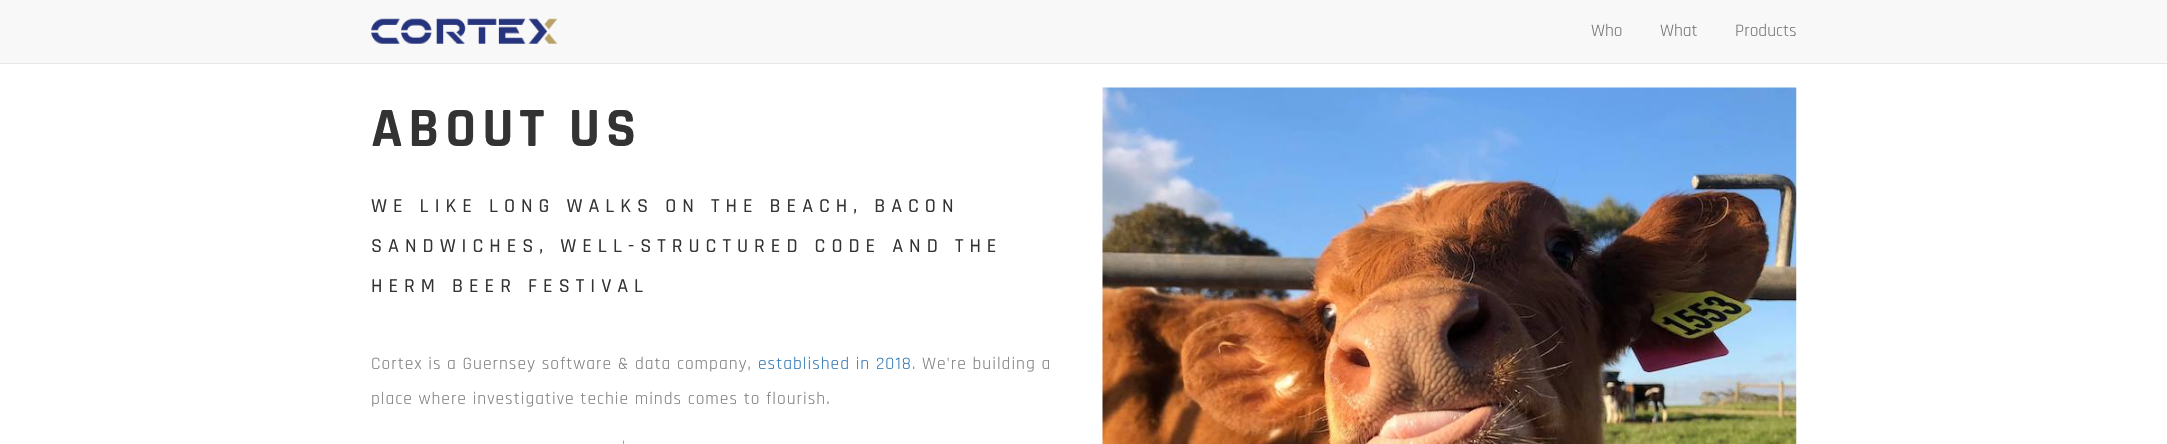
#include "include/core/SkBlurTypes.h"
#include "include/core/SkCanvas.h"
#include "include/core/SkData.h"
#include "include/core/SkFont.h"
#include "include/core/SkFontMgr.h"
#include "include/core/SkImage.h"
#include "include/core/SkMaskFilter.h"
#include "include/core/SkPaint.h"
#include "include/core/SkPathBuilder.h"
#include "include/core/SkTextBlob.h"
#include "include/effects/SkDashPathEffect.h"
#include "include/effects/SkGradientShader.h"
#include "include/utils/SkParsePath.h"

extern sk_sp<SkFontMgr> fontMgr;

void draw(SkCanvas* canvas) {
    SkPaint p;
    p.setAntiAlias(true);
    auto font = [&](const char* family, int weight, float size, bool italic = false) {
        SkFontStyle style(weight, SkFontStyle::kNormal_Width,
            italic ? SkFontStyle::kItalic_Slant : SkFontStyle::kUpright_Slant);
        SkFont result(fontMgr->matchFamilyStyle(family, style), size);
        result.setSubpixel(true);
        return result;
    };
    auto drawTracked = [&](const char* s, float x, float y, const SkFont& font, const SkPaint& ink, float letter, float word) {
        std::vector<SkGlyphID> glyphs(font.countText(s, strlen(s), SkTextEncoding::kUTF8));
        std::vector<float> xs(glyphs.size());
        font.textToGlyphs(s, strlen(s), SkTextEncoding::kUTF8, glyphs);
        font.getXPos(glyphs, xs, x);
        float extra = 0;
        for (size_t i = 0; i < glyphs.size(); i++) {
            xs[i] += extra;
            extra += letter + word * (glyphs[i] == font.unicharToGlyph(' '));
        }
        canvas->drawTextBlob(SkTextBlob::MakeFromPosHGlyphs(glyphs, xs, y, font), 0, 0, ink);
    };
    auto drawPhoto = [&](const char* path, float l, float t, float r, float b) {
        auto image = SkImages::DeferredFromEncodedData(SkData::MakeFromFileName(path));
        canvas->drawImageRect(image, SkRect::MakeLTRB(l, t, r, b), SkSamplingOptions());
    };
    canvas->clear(0xFFFFFFFF);
    p.setColor(0xFFF8F8F8);
    canvas->drawRect(SkRect::MakeLTRB(0, 0, 2167, 63), p);
    p.setColor(0xFFE7E7E7);
    canvas->drawRect(SkRect::MakeLTRB(0, 63, 2167, 64), p);
    drawPhoto("media/1.png", 371, 18, 558, 44);
    auto font1 = font("Rajdhani", 400, 17.5f);
    p.setColor(0xFF777777);
    {
        const struct { const char* s; float x, y; } items[] = {
            {"Who", 1591, 36},
            {"What", 1660, 36},
            {"Products", 1735, 36},
        };
        for (auto [s, x, y] : items) {
            canvas->drawString(s, x, y, font1, p);
        }
    }
    auto font2 = font("Rajdhani", 700, 56);
    p.setColor(0xFF333333);
    drawTracked("ABOUT US", 371, 146, font2, p, 6, 0);
    auto font3 = font("Rajdhani", 500, 20);
    {
        const struct { const char* s; float x, y; } items[] = {
            {"WE LIKE LONG WALKS ON THE BEACH, BACON", 371, 212},
            {"SANDWICHES, WELL-STRUCTURED CODE AND THE", 371, 252},
            {"HERM BEER FESTIVAL", 371, 292},
        };
        for (auto [s, x, y] : items) {
            drawTracked(s, x, y, font3, p, 6, 0);
        }
    }
    p.setColor(0xFF828282);
    drawTracked("Cortex is a Guernsey software & data company,", 371, 369, font1, p, 1, 0);
    p.setColor(0xFF337AB7);
    drawTracked("established in 2018", 758, 369, font1, p, 1, 0);
    p.setColor(0xFF828282);
    {
        const struct { const char* s; float x, y; } items[] = {
            {". We're building a", 912, 369},
            {"place where investigative techie minds comes to flourish.", 371, 404},
            {"'", 622, 452},
        };
        for (auto [s, x, y] : items) {
            drawTracked(s, x, y, font1, p, 1, 0);
        }
    }
    drawPhoto("media/2.png", 1102, 87, 1797, 444);
}
